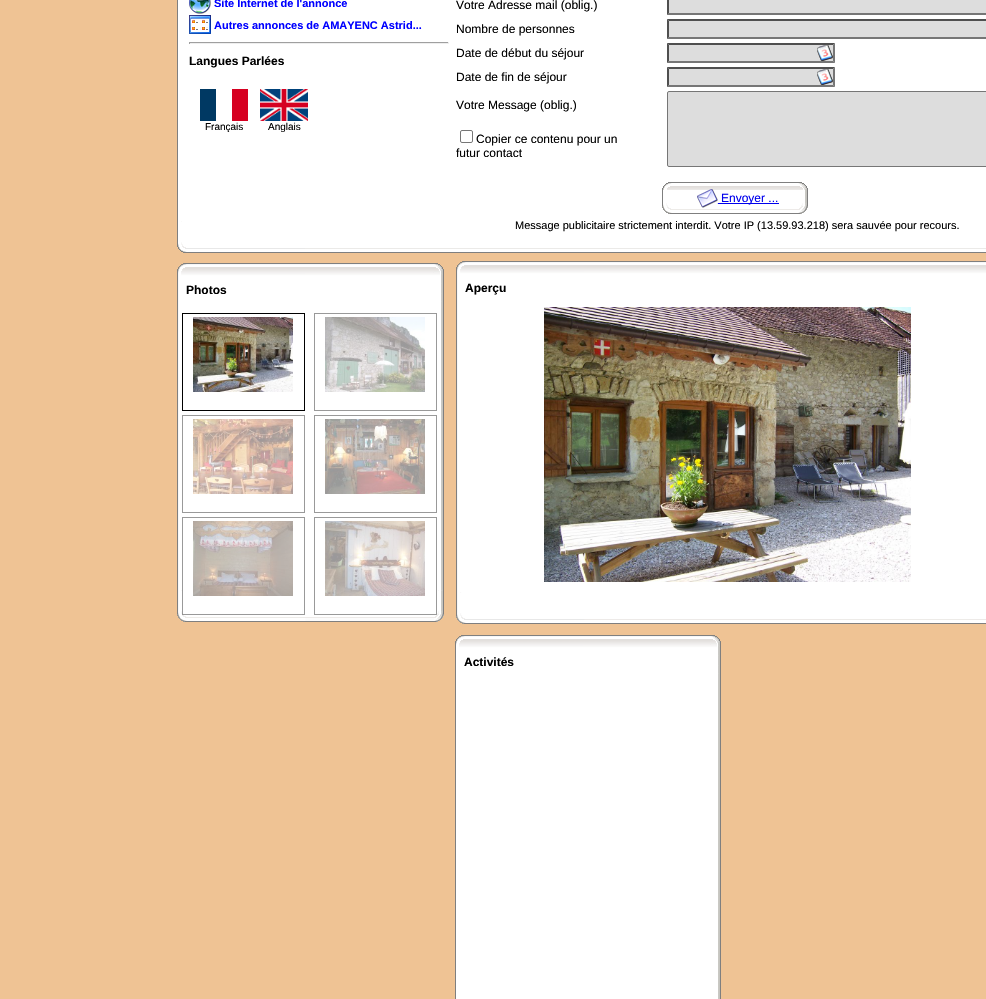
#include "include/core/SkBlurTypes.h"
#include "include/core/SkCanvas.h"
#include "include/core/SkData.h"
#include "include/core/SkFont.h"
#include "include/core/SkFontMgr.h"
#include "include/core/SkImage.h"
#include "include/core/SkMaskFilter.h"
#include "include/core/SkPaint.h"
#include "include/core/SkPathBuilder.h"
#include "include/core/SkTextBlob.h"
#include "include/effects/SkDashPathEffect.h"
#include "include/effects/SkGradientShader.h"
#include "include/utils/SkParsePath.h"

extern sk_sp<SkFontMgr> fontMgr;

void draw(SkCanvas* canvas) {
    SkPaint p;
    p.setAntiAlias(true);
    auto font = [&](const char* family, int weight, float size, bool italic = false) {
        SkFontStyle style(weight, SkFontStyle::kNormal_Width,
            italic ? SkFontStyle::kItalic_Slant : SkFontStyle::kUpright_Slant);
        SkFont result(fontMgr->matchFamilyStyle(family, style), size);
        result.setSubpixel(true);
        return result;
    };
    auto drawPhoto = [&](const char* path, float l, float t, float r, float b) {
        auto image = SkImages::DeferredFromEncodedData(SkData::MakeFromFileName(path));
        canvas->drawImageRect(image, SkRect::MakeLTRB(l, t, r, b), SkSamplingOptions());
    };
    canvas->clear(0xFFEFC394);
    drawPhoto("media/1.png", 177, 0, 986, 253);
    drawPhoto("media/2.png", 189, 0, 211, 14);
    auto font1 = font("Liberation Sans", 700, 11);
    p.setColor(0xFF0000FF);
    canvas->drawString("Site Internet de l'annonce", 214, 7, font1, p);
    drawPhoto("media/3.png", 189, 15, 211, 34);
    canvas->drawString("Autres annonces de AMAYENC Astrid...", 214, 29, font1, p);
    {
        const struct { float l, t, r, b; SkColor color; } items[] = {
            {189, 42, 449, 43, 0xFF9F9F9F},
            {448, 42, 449, 44, 0xFFEEEEEE},
            {189, 43, 449, 44, 0xFFEEEEEE},
            {189, 42, 190, 44, 0xFF9F9F9F},
        };
        for (auto [l, t, r, b, color] : items) {
            p.setColor(color);
            canvas->drawRect(SkRect::MakeLTRB(l, t, r, b), p);
        }
    }
    auto font2 = font("Liberation Sans", 700, 12);
    p.setColor(0xFF000000);
    canvas->drawString("Langues Parlées", 189, 65, font2, p);
    drawPhoto("media/4.png", 200, 89, 248, 121);
    auto font3 = font("Liberation Sans", 400, 10);
    canvas->drawString("Français", 205, 130, font3, p);
    drawPhoto("media/5.png", 260, 89, 308, 121);
    canvas->drawString("Anglais", 268, 130, font3, p);
    auto font4 = font("Liberation Sans", 400, 12);
    canvas->drawString("Votre Adresse mail (oblig.)", 456, 9, font4, p);
    p.setColor(0xFFDDDDDD);
    canvas->drawRect(SkRect::MakeLTRB(667, 0, 986, 15), p);
    p.setColor(0xFF767676);
    canvas->drawPath(SkPathBuilder().moveTo(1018, 15).lineTo(667, 15).lineTo(669, 13).lineTo(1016, 13).close().detach(), p);
    p.setColor(0xFF4F4F4F);
    canvas->drawPath(SkPathBuilder().moveTo(667, 15).lineTo(667, -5).lineTo(669, -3).lineTo(669, 13).close().detach(), p);
    p.setColor(0xFF000000);
    canvas->drawString("Nombre de personnes", 456, 33, font4, p);
    p.setColor(0xFFDDDDDD);
    canvas->drawRect(SkRect::MakeLTRB(667, 19, 986, 39), p);
    p.setColor(0xFF4F4F4F);
    canvas->drawPath(SkPathBuilder().moveTo(667, 19).lineTo(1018, 19).lineTo(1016, 21).lineTo(669, 21).close().detach(), p);
    p.setColor(0xFF767676);
    canvas->drawPath(SkPathBuilder().moveTo(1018, 39).lineTo(667, 39).lineTo(669, 37).lineTo(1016, 37).close().detach(), p);
    p.setColor(0xFF4F4F4F);
    canvas->drawPath(SkPathBuilder().moveTo(667, 39).lineTo(667, 19).lineTo(669, 21).lineTo(669, 37).close().detach(), p);
    p.setColor(0xFF000000);
    canvas->drawString("Date de début du séjour", 456, 57, font4, p);
    p.setColor(0xFFDDDDDD);
    canvas->drawRect(SkRect::MakeLTRB(667, 43, 835, 63), p);
    drawPhoto("media/6.png", 817, 45, 833, 61);
    p.setColor(0xFF4F4F4F);
    canvas->drawPath(SkPathBuilder().moveTo(667, 43).lineTo(835, 43).lineTo(833, 45).lineTo(669, 45).close().detach(), p);
    p.setColor(0xFF767676);
    canvas->drawPath(SkPathBuilder().moveTo(835, 43).lineTo(835, 63).lineTo(833, 61).lineTo(833, 45).close().detach(), p);
    canvas->drawPath(SkPathBuilder().moveTo(835, 63).lineTo(667, 63).lineTo(669, 61).lineTo(833, 61).close().detach(), p);
    p.setColor(0xFF4F4F4F);
    canvas->drawPath(SkPathBuilder().moveTo(667, 63).lineTo(667, 43).lineTo(669, 45).lineTo(669, 61).close().detach(), p);
    p.setColor(0xFF000000);
    canvas->drawString("Date de fin de séjour", 456, 81, font4, p);
    p.setColor(0xFFDDDDDD);
    canvas->drawRect(SkRect::MakeLTRB(667, 67, 835, 87), p);
    drawPhoto("media/6.png", 817, 69, 833, 85);
    p.setColor(0xFF4F4F4F);
    canvas->drawPath(SkPathBuilder().moveTo(667, 67).lineTo(835, 67).lineTo(833, 69).lineTo(669, 69).close().detach(), p);
    p.setColor(0xFF767676);
    canvas->drawPath(SkPathBuilder().moveTo(835, 67).lineTo(835, 87).lineTo(833, 85).lineTo(833, 69).close().detach(), p);
    canvas->drawPath(SkPathBuilder().moveTo(835, 87).lineTo(667, 87).lineTo(669, 85).lineTo(833, 85).close().detach(), p);
    p.setColor(0xFF4F4F4F);
    canvas->drawPath(SkPathBuilder().moveTo(667, 87).lineTo(667, 67).lineTo(669, 69).lineTo(669, 85).close().detach(), p);
    p.setColor(0xFF000000);
    canvas->drawString("Votre Message (oblig.)", 456, 109, font4, p);
    p.setStyle(SkPaint::kStroke_Style);
    p.setStrokeWidth(1);
    p.setColor(0xFF767676);
    canvas->drawRoundRect(SkRect::MakeLTRB(460.5f, 130.5f, 472.5f, 142.5f), 1.5f, 1.5f, p);
    p.setStyle(SkPaint::kFill_Style);
    p.setColor(0xFF000000);
    canvas->drawString("Copier ce contenu pour un", 476, 143, font4, p);
    canvas->drawString("futur contact", 456, 157, font4, p);
    p.setColor(0xFFDDDDDD);
    canvas->drawRoundRect(SkRect::MakeLTRB(667.5f, 91.5f, 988.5f, 166.5f), 1.5f, 1.5f, p);
    p.setStyle(SkPaint::kStroke_Style);
    p.setColor(0xFF767676);
    canvas->drawRoundRect(SkRect::MakeLTRB(667.5f, 91.5f, 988.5f, 166.5f), 1.5f, 1.5f, p);
    drawPhoto("media/7.png", 662, 182, 808, 214);
    drawPhoto("media/8.png", 697, 189, 718, 208);
    p.setStyle(SkPaint::kFill_Style);
    p.setColor(0xFF0000EE);
    canvas->drawRect(SkRect::MakeLTRB(748, 203, 779, 204), p);
    canvas->drawString("Envoyer ...", 721, 202, font4, p);
    auto font5 = font("Liberation Sans", 400, 11);
    p.setColor(0xFF000000);
    canvas->drawString("Message publicitaire strictement interdit. Votre IP (13.59.93.218) sera sauvée pour recours.", 515, 229, font5, p);
    drawPhoto("media/9.png", 177, 263, 444, 308);
    canvas->drawString("Photos", 186, 294, font2, p);
    drawPhoto("media/10.png", 177, 308, 444, 622);
    p.setStyle(SkPaint::kStroke_Style);
    canvas->drawRect(SkRect::MakeLTRB(182.5f, 313.5f, 304.5f, 410.5f), p);
    drawPhoto("media/11.png", 193, 317, 293, 392);
    p.setColor(0xFF999999);
    canvas->drawRect(SkRect::MakeLTRB(314.5f, 313.5f, 436.5f, 410.5f), p);
    drawPhoto("media/12.png", 325, 317, 425, 392);
    canvas->drawRect(SkRect::MakeLTRB(182.5f, 415.5f, 304.5f, 512.5f), p);
    drawPhoto("media/13.png", 193, 419, 293, 494);
    canvas->drawRect(SkRect::MakeLTRB(314.5f, 415.5f, 436.5f, 512.5f), p);
    drawPhoto("media/14.png", 325, 419, 425, 494);
    p.setColor(0x66000000);
    canvas->drawRect(SkRect::MakeLTRB(182.5f, 517.5f, 304.5f, 614.5f), p);
    drawPhoto("media/15.png", 193, 521, 293, 596);
    p.setColor(0xFF999999);
    canvas->drawRect(SkRect::MakeLTRB(314.5f, 517.5f, 436.5f, 614.5f), p);
    drawPhoto("media/16.png", 325, 521, 425, 596);
    drawPhoto("media/17.png", 456, 261, 986, 306);
    p.setStyle(SkPaint::kFill_Style);
    p.setColor(0xFF000000);
    canvas->drawString("Aperçu", 465, 292, font2, p);
    drawPhoto("media/18.png", 456, 306, 986, 624);
    drawPhoto("media/19.png", 544, 307, 911, 582);
    drawPhoto("media/20.png", 455, 635, 721, 680);
    canvas->drawString("Activités", 464, 666, font2, p);
    drawPhoto("media/21.png", 455, 680, 721, 999);
}
